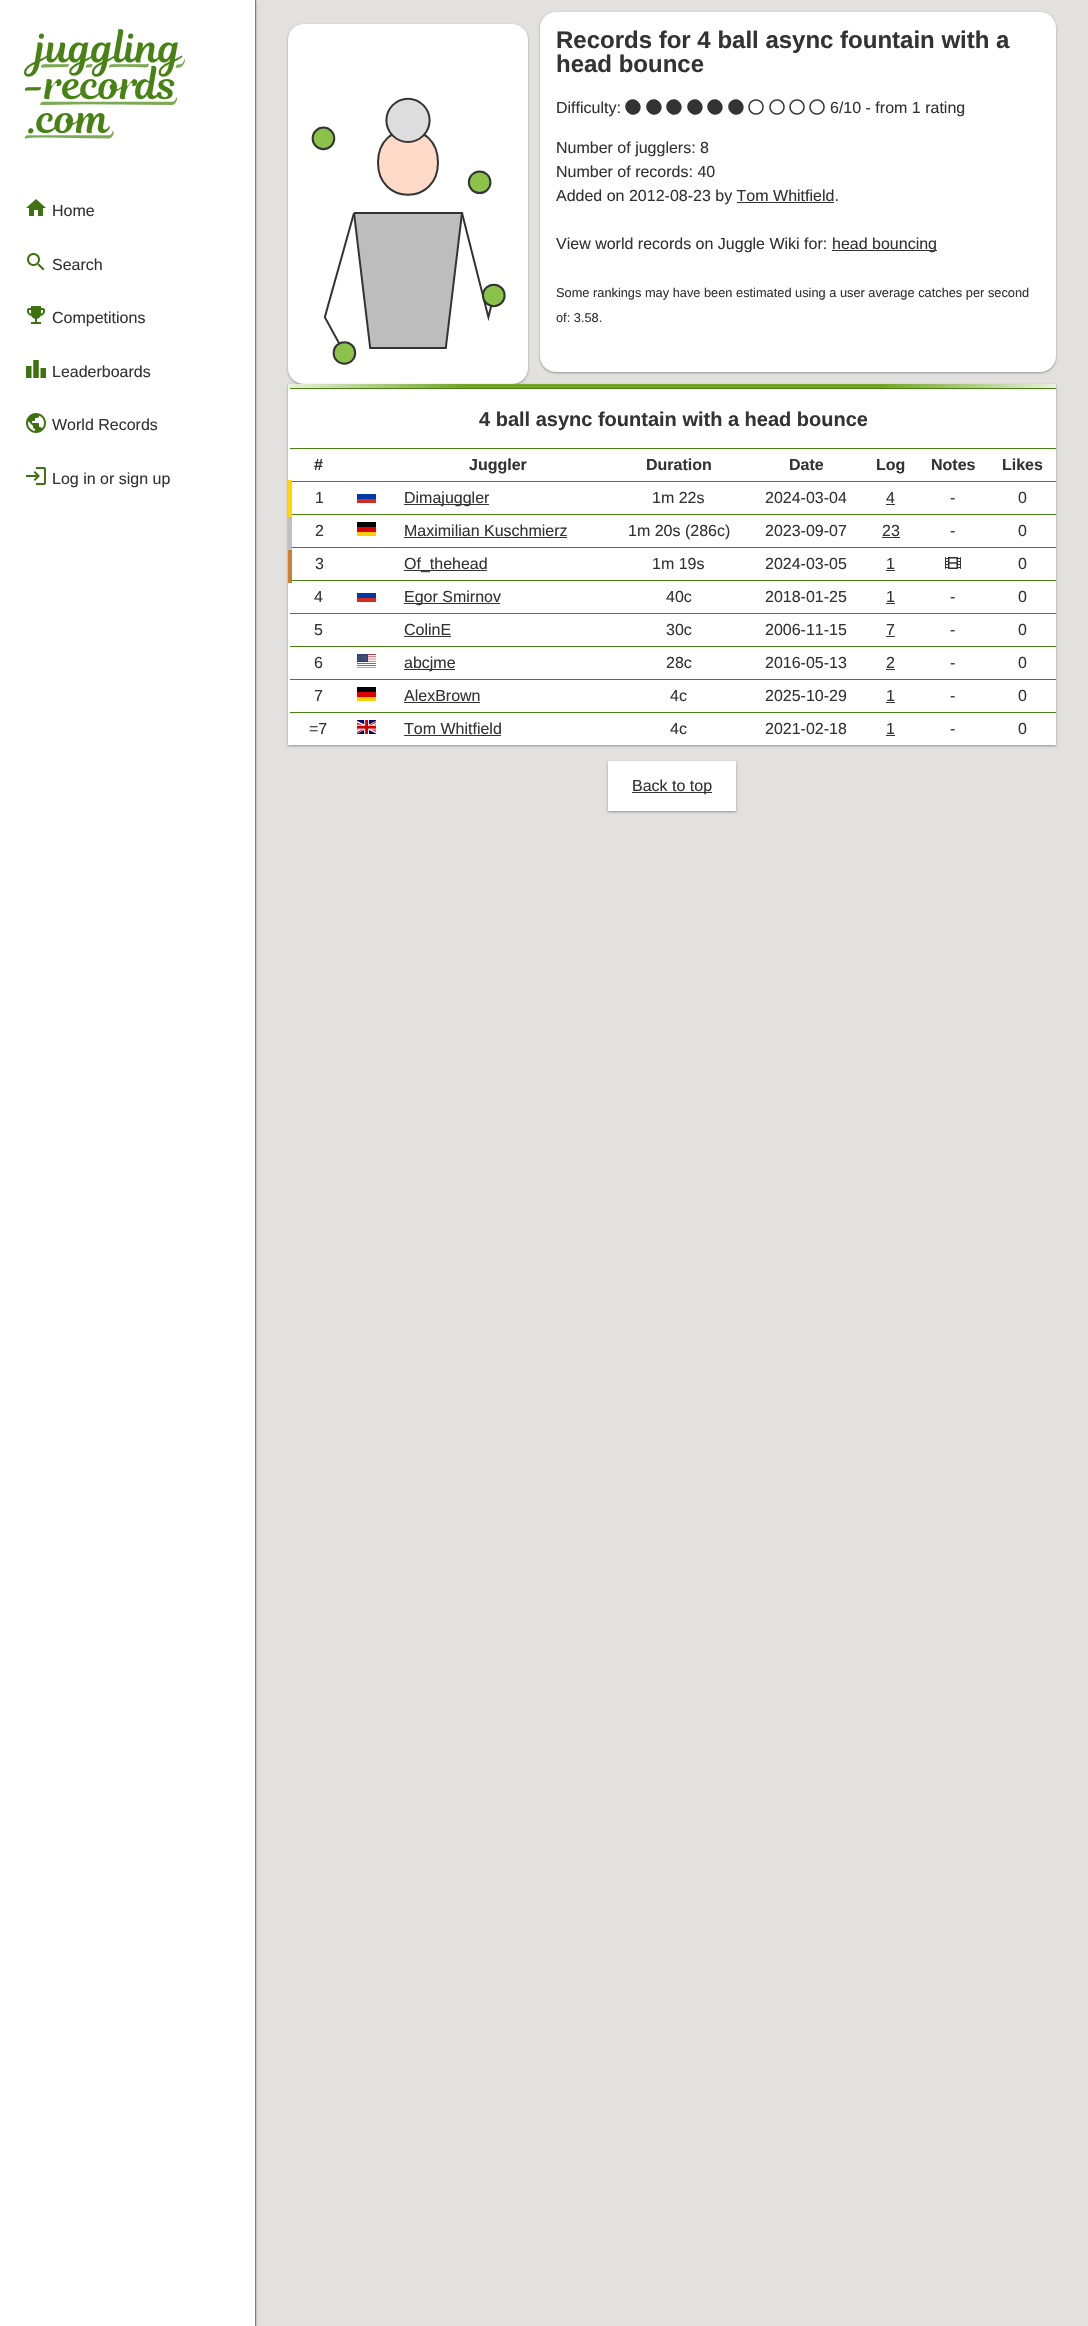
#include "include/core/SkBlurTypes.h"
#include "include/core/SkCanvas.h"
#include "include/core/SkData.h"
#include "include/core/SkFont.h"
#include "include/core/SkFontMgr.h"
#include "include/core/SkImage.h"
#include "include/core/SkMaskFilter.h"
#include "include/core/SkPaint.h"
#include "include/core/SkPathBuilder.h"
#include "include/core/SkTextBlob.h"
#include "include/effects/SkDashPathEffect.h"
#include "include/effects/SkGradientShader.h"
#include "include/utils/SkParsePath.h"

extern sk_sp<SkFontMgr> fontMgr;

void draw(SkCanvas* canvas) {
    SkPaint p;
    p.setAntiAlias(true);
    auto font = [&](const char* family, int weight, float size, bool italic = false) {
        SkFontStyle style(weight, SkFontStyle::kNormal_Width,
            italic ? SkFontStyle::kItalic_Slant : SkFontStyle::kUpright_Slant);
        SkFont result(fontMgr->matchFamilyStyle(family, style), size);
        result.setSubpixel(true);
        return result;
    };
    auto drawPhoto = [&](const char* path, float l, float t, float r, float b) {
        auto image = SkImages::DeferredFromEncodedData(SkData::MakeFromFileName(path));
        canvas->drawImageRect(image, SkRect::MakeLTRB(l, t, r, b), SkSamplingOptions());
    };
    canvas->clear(0xFFE2E1E0);
    p.setColor(0x3D000000);
    p.setMaskFilter(SkMaskFilter::MakeBlur(kNormal_SkBlurStyle, 1));
    canvas->drawRect(SkRect::MakeLTRB(0, 1, 256, 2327), p);
    p.setMaskFilter(nullptr);
    p.setColor(0x1F000000);
    p.setMaskFilter(SkMaskFilter::MakeBlur(kNormal_SkBlurStyle, 1.5f));
    canvas->drawRect(SkRect::MakeLTRB(0, 1, 256, 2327), p);
    p.setMaskFilter(nullptr);
    p.setColor(0xFFFFFFFF);
    canvas->drawRect(SkRect::MakeLTRB(0, 0, 255, 2326), p);
    p.setColor(0xFF808080);
    canvas->drawRect(SkRect::MakeLTRB(255, 0, 256, 2326), p);
    drawPhoto("media/1.png", 24, 29, 185, 139);
    drawPhoto("media/2.png", 26, 199, 46, 216);
    auto font1 = font("Liberation Sans", 400, 16);
    p.setColor(0xFF333333);
    canvas->drawString("Home", 52, 216, font1, p);
    drawPhoto("media/3.png", 27, 253, 45, 271);
    canvas->drawString("Search", 52, 270, font1, p);
    drawPhoto("media/4.png", 27, 306, 45, 324);
    canvas->drawString("Competitions", 52, 323, font1, p);
    drawPhoto("media/5.png", 26, 360, 46, 378);
    canvas->drawString("Leaderboards", 52, 377, font1, p);
    drawPhoto("media/6.png", 26, 413, 46, 433);
    canvas->drawString("World Records", 52, 430, font1, p);
    drawPhoto("media/7.png", 26, 467, 46, 485);
    canvas->drawString("Log in or sign up", 52, 484, font1, p);
    p.setColor(0x3D000000);
    p.setMaskFilter(SkMaskFilter::MakeBlur(kNormal_SkBlurStyle, 1));
    canvas->drawRoundRect(SkRect::MakeLTRB(288, 25, 528, 385), 16, 16, p);
    p.setMaskFilter(nullptr);
    p.setColor(0x1F000000);
    p.setMaskFilter(SkMaskFilter::MakeBlur(kNormal_SkBlurStyle, 1.5f));
    canvas->drawRoundRect(SkRect::MakeLTRB(288, 25, 528, 385), 16, 16, p);
    p.setMaskFilter(nullptr);
    p.setColor(0xFFFFFFFF);
    canvas->drawRoundRect(SkRect::MakeLTRB(288, 24, 528, 384), 16, 16, p);
    drawPhoto("media/8.png", 311, 97, 506, 365);
    p.setColor(0x3D000000);
    p.setMaskFilter(SkMaskFilter::MakeBlur(kNormal_SkBlurStyle, 1));
    canvas->drawRoundRect(SkRect::MakeLTRB(540, 13, 1056, 373), 16, 16, p);
    p.setMaskFilter(nullptr);
    p.setColor(0x1F000000);
    p.setMaskFilter(SkMaskFilter::MakeBlur(kNormal_SkBlurStyle, 1.5f));
    canvas->drawRoundRect(SkRect::MakeLTRB(540, 13, 1056, 373), 16, 16, p);
    p.setMaskFilter(nullptr);
    p.setColor(0xFFFFFFFF);
    canvas->drawRoundRect(SkRect::MakeLTRB(540, 12, 1056, 372), 16, 16, p);
    auto font2 = font("Liberation Sans", 700, 24);
    p.setColor(0xFF333333);
    canvas->drawString("Records for 4 ball async fountain with a", 556, 48, font2, p);
    canvas->drawString("head bounce", 556, 72, font2, p);
    canvas->drawString("Difficulty:", 556, 113, font1, p);
    canvas->drawPath(SkPathBuilder().moveTo(627.5f, 101.5f).cubicTo(634.5f, 94.5f, 645.5f, 105.5f, 638.5f, 112.5f).cubicTo(631.5f, 119.5f, 620.5f, 108.5f, 627.5f, 101.5f).close().moveTo(648.5f, 101.5f).cubicTo(655.5f, 94.5f, 666.5f, 105.5f, 659.5f, 112.5f).cubicTo(652.5f, 119.5f, 641.5f, 108.5f, 648.5f, 101.5f).close().moveTo(668.5f, 101.5f).cubicTo(675.5f, 94.5f, 686.5f, 105.5f, 679.5f, 112.5f).cubicTo(672.5f, 119.5f, 661.5f, 108.5f, 668.5f, 101.5f).close().detach(), p);
    canvas->drawPath(SkPathBuilder().moveTo(689.5f, 101.5f).cubicTo(696.5f, 94.5f, 707.5f, 105.5f, 700.5f, 112.5f).cubicTo(693.5f, 119.5f, 682.5f, 108.5f, 689.5f, 101.5f).close().moveTo(709.5f, 101.5f).cubicTo(716.5f, 94.5f, 727.5f, 105.5f, 720.5f, 112.5f).cubicTo(713.5f, 119.5f, 702.5f, 108.5f, 709.5f, 101.5f).close().moveTo(730.5f, 101.5f).cubicTo(737.5f, 94.5f, 748.5f, 105.5f, 741.5f, 112.5f).cubicTo(734.5f, 119.5f, 723.5f, 108.5f, 730.5f, 101.5f).close().detach(), p);
    drawPhoto("media/9.png", 748, 99, 764, 115);
    drawPhoto("media/9.png", 769, 99, 785, 115);
    drawPhoto("media/9.png", 789, 99, 805, 115);
    drawPhoto("media/9.png", 809, 99, 825, 115);
    {
        const struct { const char* s; float x, y; } items[] = {
            {"6/10 - from 1 rating", 830, 113},
            {"Number of jugglers: 8", 556, 153},
            {"Number of records: 40", 556, 177},
            {"Added on 2012-08-23 by Tom Whitfield.", 556, 201},
        };
        for (auto [s, x, y] : items) {
            canvas->drawString(s, x, y, font1, p);
        }
    }
    canvas->drawRect(SkRect::MakeLTRB(737, 202, 834, 203), p);
    canvas->drawString("View world records on Juggle Wiki for:", 556, 249, font1, p);
    canvas->drawRect(SkRect::MakeLTRB(832, 250, 937, 251), p);
    canvas->drawString("head bouncing", 832, 249, font1, p);
    auto font3 = font("Liberation Sans", 400, 12.8f);
    canvas->drawString("Some rankings may have been estimated using a user average catches per second", 556, 297, font3, p);
    canvas->drawString("of: 3.58.", 556, 322, font3, p);
    p.setColor(0x3D000000);
    p.setMaskFilter(SkMaskFilter::MakeBlur(kNormal_SkBlurStyle, 1));
    canvas->drawRect(SkRect::MakeLTRB(288, 385, 1056, 746), p);
    p.setMaskFilter(nullptr);
    p.setColor(0x1F000000);
    p.setMaskFilter(SkMaskFilter::MakeBlur(kNormal_SkBlurStyle, 1.5f));
    canvas->drawRect(SkRect::MakeLTRB(288, 385, 1056, 746), p);
    p.setMaskFilter(nullptr);
    p.setColor(0xFFFFFFFF);
    canvas->drawRect(SkRect::MakeLTRB(288, 388, 1056, 745), p);
    drawPhoto("media/10.png", 288, 384, 1056, 388);
    p.setColor(0xFF488214);
    canvas->drawRect(SkRect::MakeLTRB(290, 388, 1056, 389), p);
    canvas->drawRect(SkRect::MakeLTRB(290, 448, 1056, 449), p);
    auto font4 = font("Liberation Sans", 700, 20);
    p.setColor(0xFF333333);
    canvas->drawString("4 ball async fountain with a head bounce", 479, 426, font4, p);
    auto font5 = font("Liberation Sans", 700, 16);
    {
        const struct { const char* s; float x, y; } items[] = {
            {"#", 314, 470},
            {"Juggler", 469, 470},
            {"Duration", 646, 470},
            {"Date", 789, 470},
            {"Log", 876, 470},
            {"Notes", 931, 470},
            {"Likes", 1002, 470},
        };
        for (auto [s, x, y] : items) {
            canvas->drawString(s, x, y, font5, p);
        }
    }
    {
        const struct { float l, t, r, b; SkColor color; } items[] = {
            {290, 481, 1056, 482, 0xFF488214},
            {290, 514, 1056, 515, 0xFF488214},
            {290, 547, 1056, 548, 0xFF488214},
            {290, 580, 1056, 581, 0xFF488214},
            {288, 546, 292, 583, 0xFFCD7F32},
            {288, 513, 292, 550, 0xFFC0C0C0},
            {288, 480, 292, 517, 0xFFFFD700},
        };
        for (auto [l, t, r, b, color] : items) {
            p.setColor(color);
            canvas->drawRect(SkRect::MakeLTRB(l, t, r, b), p);
        }
    }
    p.setColor(0xFF333333);
    canvas->drawString("1", 315, 503, font1, p);
    {
        const struct { float l, t, r, b; SkColor color; } items[] = {
            {357, 494, 376, 499, 0xFF0039A6},
            {357, 499, 376, 503, 0xFFD52B1E},
            {404, 504, 489, 505, 0xFF333333},
        };
        for (auto [l, t, r, b, color] : items) {
            p.setColor(color);
            canvas->drawRect(SkRect::MakeLTRB(l, t, r, b), p);
        }
    }
    {
        const struct { const char* s; float x, y; } items[] = {
            {"Dimajuggler", 404, 503},
            {"1m 22s", 652, 503},
            {"2024-03-04", 765, 503},
            {"4", 886, 503},
        };
        for (auto [s, x, y] : items) {
            canvas->drawString(s, x, y, font1, p);
        }
    }
    canvas->drawRect(SkRect::MakeLTRB(886, 504, 895, 505), p);
    {
        const struct { const char* s; float x, y; } items[] = {
            {"-", 950, 503},
            {"0", 1018, 503},
            {"2", 315, 536},
        };
        for (auto [s, x, y] : items) {
            canvas->drawString(s, x, y, font1, p);
        }
    }
    {
        const struct { float l, t, r, b; SkColor color; } items[] = {
            {357, 532, 376, 536, 0xFFFFCE00},
            {357, 522, 376, 527, 0xFF000000},
            {357, 527, 376, 532, 0xFFDD0000},
        };
        for (auto [l, t, r, b, color] : items) {
            p.setColor(color);
            canvas->drawRect(SkRect::MakeLTRB(l, t, r, b), p);
        }
    }
    p.setColor(0xFF333333);
    canvas->drawString("Maximilian Kuschmierz", 404, 536, font1, p);
    canvas->drawRect(SkRect::MakeLTRB(404, 537, 567, 538), p);
    {
        const struct { const char* s; float x, y; } items[] = {
            {"1m 20s (286c)", 628, 536},
            {"2023-09-07", 765, 536},
            {"23", 882, 536},
        };
        for (auto [s, x, y] : items) {
            canvas->drawString(s, x, y, font1, p);
        }
    }
    canvas->drawRect(SkRect::MakeLTRB(882, 537, 900, 538), p);
    {
        const struct { const char* s; float x, y; } items[] = {
            {"-", 950, 536},
            {"0", 1018, 536},
            {"3", 315, 569},
        };
        for (auto [s, x, y] : items) {
            canvas->drawString(s, x, y, font1, p);
        }
    }
    canvas->drawRect(SkRect::MakeLTRB(404, 570, 487, 571), p);
    {
        const struct { const char* s; float x, y; } items[] = {
            {"Of_thehead", 404, 569},
            {"1m 19s", 652, 569},
            {"2024-03-05", 765, 569},
            {"1", 886, 569},
        };
        for (auto [s, x, y] : items) {
            canvas->drawString(s, x, y, font1, p);
        }
    }
    canvas->drawRect(SkRect::MakeLTRB(886, 570, 895, 571), p);
    drawPhoto("media/11.png", 945, 557, 961, 569);
    canvas->drawString("0", 1018, 569, font1, p);
    canvas->drawString("4", 314, 602, font1, p);
    {
        const struct { float l, t, r, b; SkColor color; } items[] = {
            {357, 593, 376, 598, 0xFF0039A6},
            {357, 598, 376, 602, 0xFFD52B1E},
            {404, 603, 500, 604, 0xFF333333},
        };
        for (auto [l, t, r, b, color] : items) {
            p.setColor(color);
            canvas->drawRect(SkRect::MakeLTRB(l, t, r, b), p);
        }
    }
    {
        const struct { const char* s; float x, y; } items[] = {
            {"Egor Smirnov", 404, 602},
            {"40c", 666, 602},
            {"2018-01-25", 765, 602},
            {"1", 886, 602},
        };
        for (auto [s, x, y] : items) {
            canvas->drawString(s, x, y, font1, p);
        }
    }
    canvas->drawRect(SkRect::MakeLTRB(886, 603, 895, 604), p);
    canvas->drawString("-", 950, 602, font1, p);
    canvas->drawString("0", 1018, 602, font1, p);
    p.setColor(0xFF488214);
    canvas->drawRect(SkRect::MakeLTRB(290, 613, 1056, 614), p);
    p.setColor(0xFF333333);
    canvas->drawString("5", 314, 635, font1, p);
    canvas->drawString("ColinE", 404, 635, font1, p);
    canvas->drawRect(SkRect::MakeLTRB(404, 636, 451, 637), p);
    {
        const struct { const char* s; float x, y; } items[] = {
            {"30c", 666, 635},
            {"2006-11-15", 765, 635},
            {"7", 886, 635},
        };
        for (auto [s, x, y] : items) {
            canvas->drawString(s, x, y, font1, p);
        }
    }
    canvas->drawRect(SkRect::MakeLTRB(886, 636, 895, 637), p);
    canvas->drawString("-", 950, 635, font1, p);
    canvas->drawString("0", 1018, 635, font1, p);
    p.setColor(0xFF488214);
    canvas->drawRect(SkRect::MakeLTRB(290, 646, 1056, 647), p);
    p.setColor(0xFF333333);
    canvas->drawString("6", 314, 668, font1, p);
    drawPhoto("media/12.png", 357, 654, 376, 668);
    canvas->drawRect(SkRect::MakeLTRB(404, 669, 455, 670), p);
    {
        const struct { const char* s; float x, y; } items[] = {
            {"abcjme", 404, 668},
            {"28c", 666, 668},
            {"2016-05-13", 765, 668},
            {"2", 886, 668},
        };
        for (auto [s, x, y] : items) {
            canvas->drawString(s, x, y, font1, p);
        }
    }
    canvas->drawRect(SkRect::MakeLTRB(886, 669, 895, 670), p);
    canvas->drawString("-", 950, 668, font1, p);
    canvas->drawString("0", 1018, 668, font1, p);
    p.setColor(0xFF488214);
    canvas->drawRect(SkRect::MakeLTRB(290, 679, 1056, 680), p);
    p.setColor(0xFF333333);
    canvas->drawString("7", 314, 701, font1, p);
    {
        const struct { float l, t, r, b; SkColor color; } items[] = {
            {357, 697, 376, 701, 0xFFFFCE00},
            {357, 687, 376, 692, 0xFF000000},
            {357, 692, 376, 697, 0xFFDD0000},
        };
        for (auto [l, t, r, b, color] : items) {
            p.setColor(color);
            canvas->drawRect(SkRect::MakeLTRB(l, t, r, b), p);
        }
    }
    p.setColor(0xFF333333);
    canvas->drawString("AlexBrown", 404, 701, font1, p);
    canvas->drawRect(SkRect::MakeLTRB(404, 702, 480, 703), p);
    {
        const struct { const char* s; float x, y; } items[] = {
            {"4c", 670, 701},
            {"2025-10-29", 765, 701},
            {"1", 886, 701},
        };
        for (auto [s, x, y] : items) {
            canvas->drawString(s, x, y, font1, p);
        }
    }
    canvas->drawRect(SkRect::MakeLTRB(886, 702, 895, 703), p);
    canvas->drawString("-", 950, 701, font1, p);
    canvas->drawString("0", 1018, 701, font1, p);
    p.setColor(0xFF488214);
    canvas->drawRect(SkRect::MakeLTRB(290, 712, 1056, 713), p);
    p.setColor(0xFF333333);
    canvas->drawString("=7", 309, 734, font1, p);
    drawPhoto("media/13.png", 357, 720, 376, 734);
    canvas->drawString("Tom Whitfield", 404, 734, font1, p);
    canvas->drawRect(SkRect::MakeLTRB(404, 735, 501, 736), p);
    {
        const struct { const char* s; float x, y; } items[] = {
            {"4c", 670, 734},
            {"2021-02-18", 765, 734},
            {"1", 886, 734},
        };
        for (auto [s, x, y] : items) {
            canvas->drawString(s, x, y, font1, p);
        }
    }
    canvas->drawRect(SkRect::MakeLTRB(886, 735, 895, 736), p);
    canvas->drawString("-", 950, 734, font1, p);
    canvas->drawString("0", 1018, 734, font1, p);
    p.setColor(0x3D000000);
    p.setMaskFilter(SkMaskFilter::MakeBlur(kNormal_SkBlurStyle, 1));
    canvas->drawRect(SkRect::MakeLTRB(608, 762, 736, 812), p);
    p.setMaskFilter(nullptr);
    p.setColor(0x1F000000);
    p.setMaskFilter(SkMaskFilter::MakeBlur(kNormal_SkBlurStyle, 1.5f));
    canvas->drawRect(SkRect::MakeLTRB(608, 762, 736, 812), p);
    p.setMaskFilter(nullptr);
    p.setColor(0xFFFFFFFF);
    canvas->drawRect(SkRect::MakeLTRB(608, 761, 736, 811), p);
    p.setColor(0xFF333333);
    canvas->drawRect(SkRect::MakeLTRB(632, 792, 712, 793), p);
    canvas->drawString("Back to top", 632, 791, font1, p);
}
